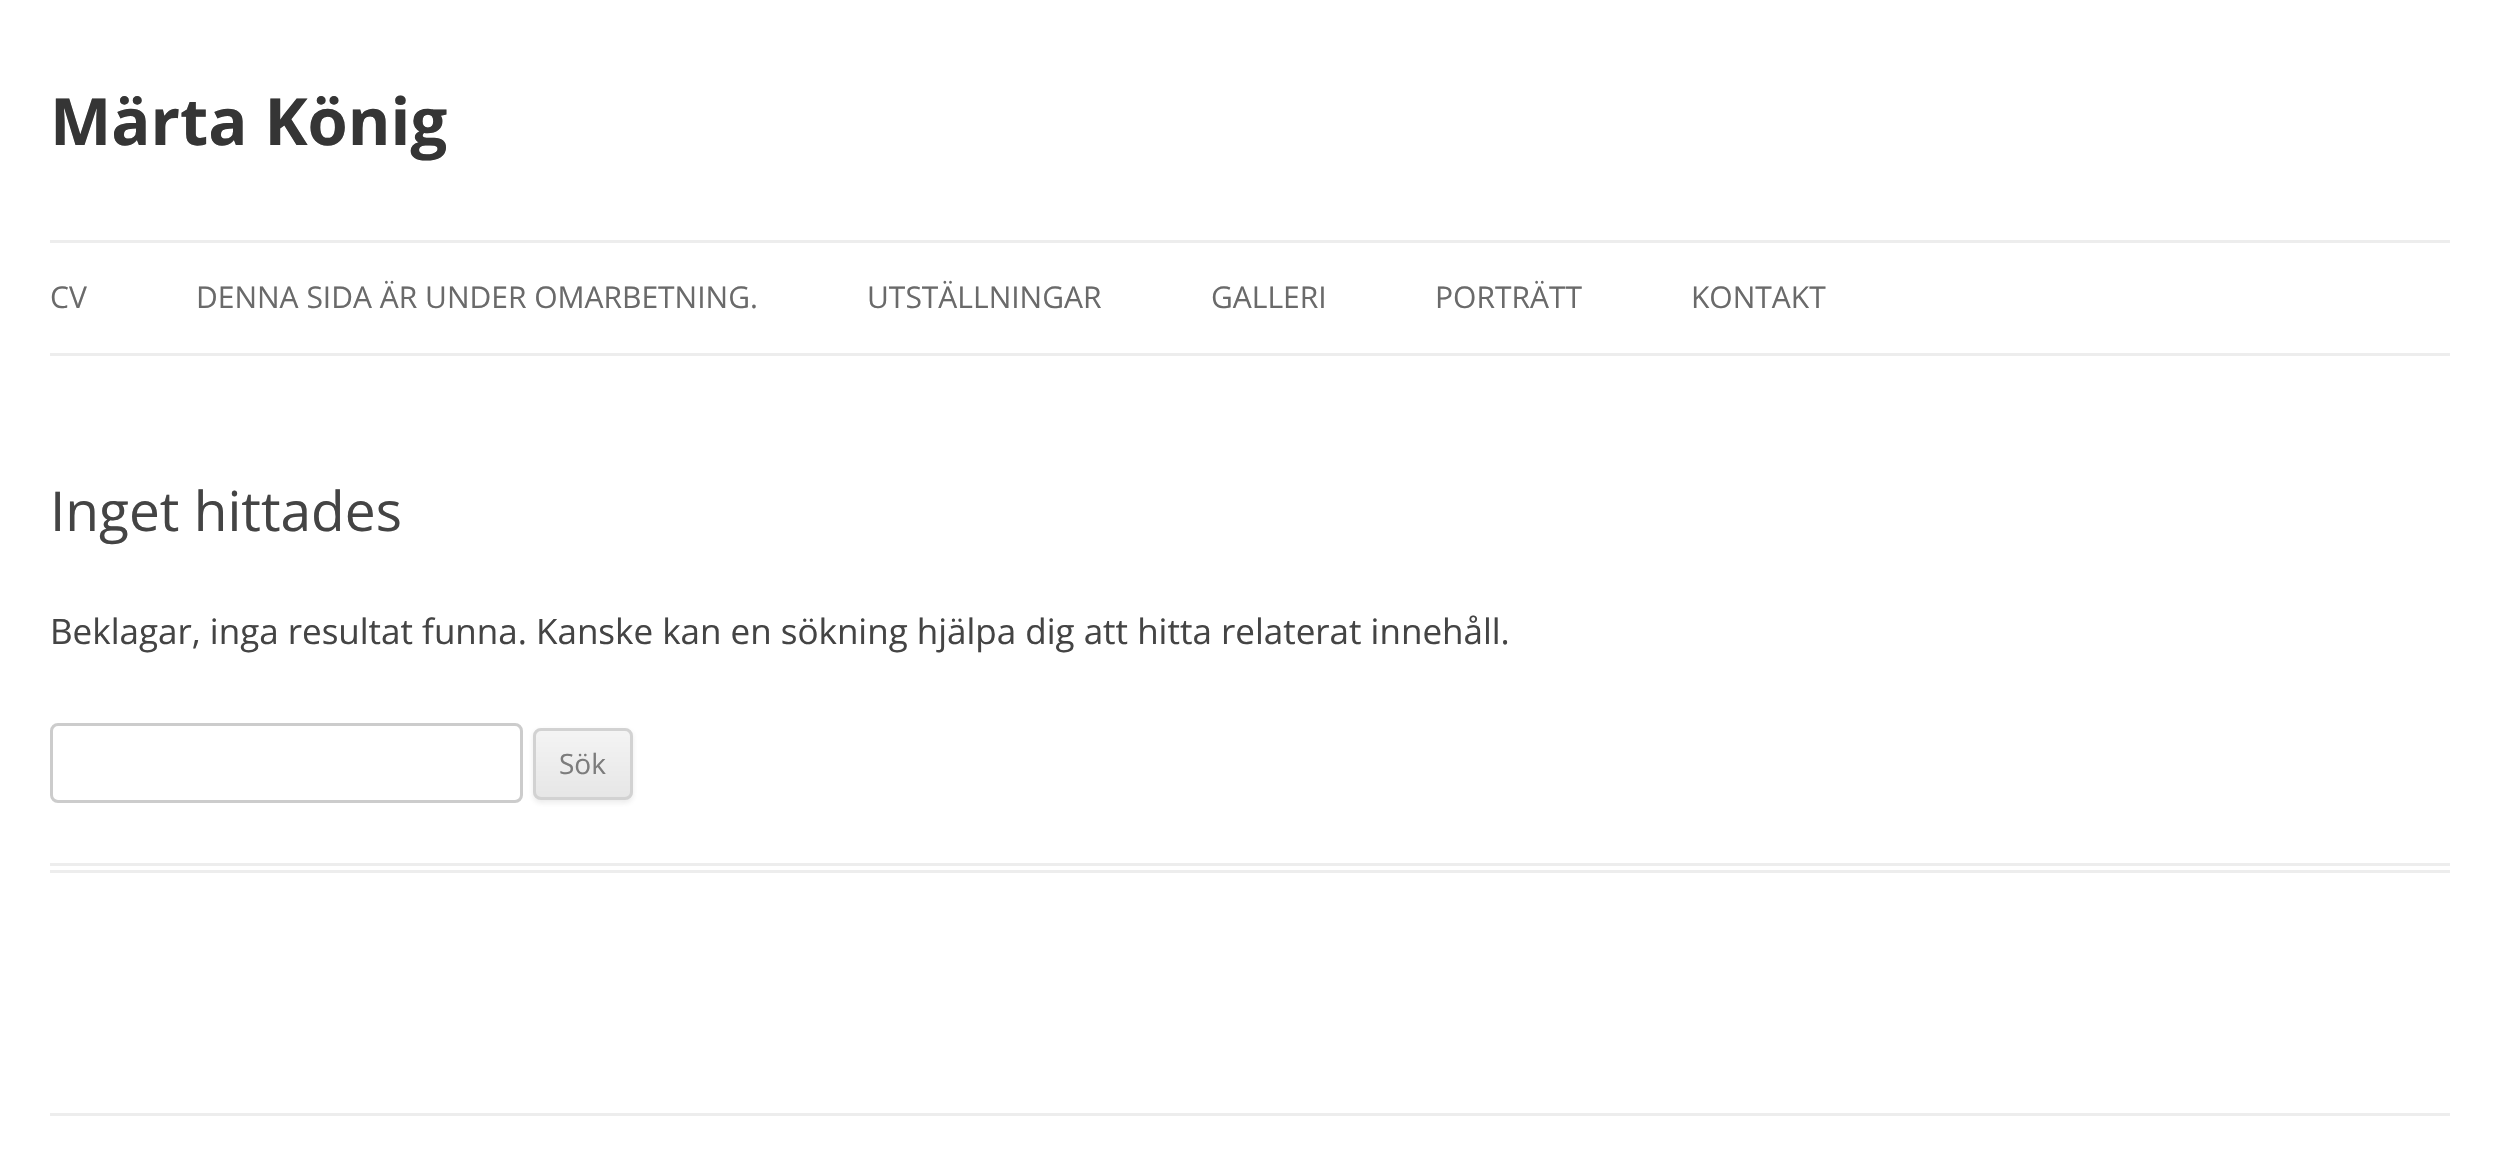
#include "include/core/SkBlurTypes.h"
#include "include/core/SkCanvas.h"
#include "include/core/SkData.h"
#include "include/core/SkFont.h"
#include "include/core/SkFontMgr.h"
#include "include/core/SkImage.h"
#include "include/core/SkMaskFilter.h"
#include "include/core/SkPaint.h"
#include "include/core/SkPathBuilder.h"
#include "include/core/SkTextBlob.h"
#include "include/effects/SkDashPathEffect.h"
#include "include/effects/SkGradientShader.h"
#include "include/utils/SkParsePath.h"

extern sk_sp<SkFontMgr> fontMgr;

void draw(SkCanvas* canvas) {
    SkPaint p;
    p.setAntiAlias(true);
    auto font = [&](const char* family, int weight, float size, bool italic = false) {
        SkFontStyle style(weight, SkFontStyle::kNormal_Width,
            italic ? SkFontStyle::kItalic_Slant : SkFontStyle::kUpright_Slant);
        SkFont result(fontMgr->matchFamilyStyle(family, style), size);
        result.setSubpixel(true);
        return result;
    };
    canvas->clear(0xFFFFFFFF);
    auto font1 = font("Open Sans", 700, 65);
    p.setColor(0xFF353535);
    canvas->drawString("Märta König", 50, 145, font1, p);
    p.setColor(0xFFEDEDED);
    canvas->drawRect(SkRect::MakeLTRB(50, 240, 2450, 243), p);
    canvas->drawRect(SkRect::MakeLTRB(50, 353, 2450, 356), p);
    auto font2 = font("Open Sans", 400, 30);
    p.setColor(0xFF6A6A6A);
    {
        const struct { const char* s; float x, y; } items[] = {
            {"CV", 50, 308},
            {"DENNA SIDA ÄR UNDER OMARBETNING.", 196, 308},
            {"UTSTÄLLNINGAR", 867, 308},
            {"GALLERI", 1211, 308},
            {"PORTRÄTT", 1435, 308},
            {"KONTAKT", 1691, 308},
        };
        for (auto [s, x, y] : items) {
            canvas->drawString(s, x, y, font2, p);
        }
    }
    p.setColor(0xFFEDEDED);
    canvas->drawRect(SkRect::MakeLTRB(50, 863, 2450, 866), p);
    canvas->drawRect(SkRect::MakeLTRB(50, 870, 2450, 873), p);
    auto font3 = font("Open Sans", 400, 55);
    p.setColor(0xFF444444);
    canvas->drawString("Inget hittades", 50, 531, font3, p);
    auto font4 = font("Open Sans", 400, 35);
    canvas->drawString("Beklagar, inga resultat funna. Kanske kan en sökning hjälpa dig att hitta relaterat innehåll.", 50, 644, font4, p);
    p.setStyle(SkPaint::kStroke_Style);
    p.setStrokeWidth(3);
    p.setColor(0xFFCCCCCC);
    canvas->drawRoundRect(SkRect::MakeLTRB(51.5f, 724.5f, 521.5f, 801.5f), 6.5f, 6.5f, p);
    p.setStyle(SkPaint::kFill_Style);
    p.setColor(0x1A404040);
    p.setMaskFilter(SkMaskFilter::MakeBlur(kNormal_SkBlurStyle, 2.5f));
    canvas->drawRoundRect(SkRect::MakeLTRB(533, 730, 633, 803), 8, 8, p);
    p.setMaskFilter(nullptr);
    canvas->save();
    canvas->clipPath(SkPathBuilder().moveTo(541, 728).lineTo(625, 728).cubicTo(629.5f, 728, 633, 731.5f, 633, 736).lineTo(633, 792).cubicTo(633, 796.5f, 629.5f, 800, 625, 800).lineTo(541, 800).cubicTo(536.5f, 800, 533, 796.5f, 533, 792).lineTo(533, 736).cubicTo(533, 731.5f, 536.5f, 728, 541, 728).close().detach(), true);
    {
        const SkColor colors[] = {0xFFF4F4F4, 0xFFE6E6E6};
        const float stops[] = {0, 1};
        const SkPoint ends[] = {{583, 730}, {583, 798}};
        p.setShader(SkGradientShader::MakeLinear(ends, colors, stops, 2, SkTileMode::kClamp));
        p.setAlpha(255);
    }
    canvas->drawRect(SkRect::MakeLTRB(533, 730, 633, 798), p);
    canvas->restore();
    p.setStyle(SkPaint::kStroke_Style);
    p.setShader(nullptr);
    p.setColor(0xFFD2D2D2);
    canvas->drawRoundRect(SkRect::MakeLTRB(534.5f, 729.5f, 631.5f, 798.5f), 6.5f, 6.5f, p);
    auto font5 = font("Open Sans", 400, 28);
    p.setStyle(SkPaint::kFill_Style);
    p.setColor(0xFF7C7C7C);
    canvas->drawString("Sök", 559, 774, font5, p);
    p.setColor(0xFFEDEDED);
    canvas->drawRect(SkRect::MakeLTRB(50, 1113, 2450, 1116), p);
}
